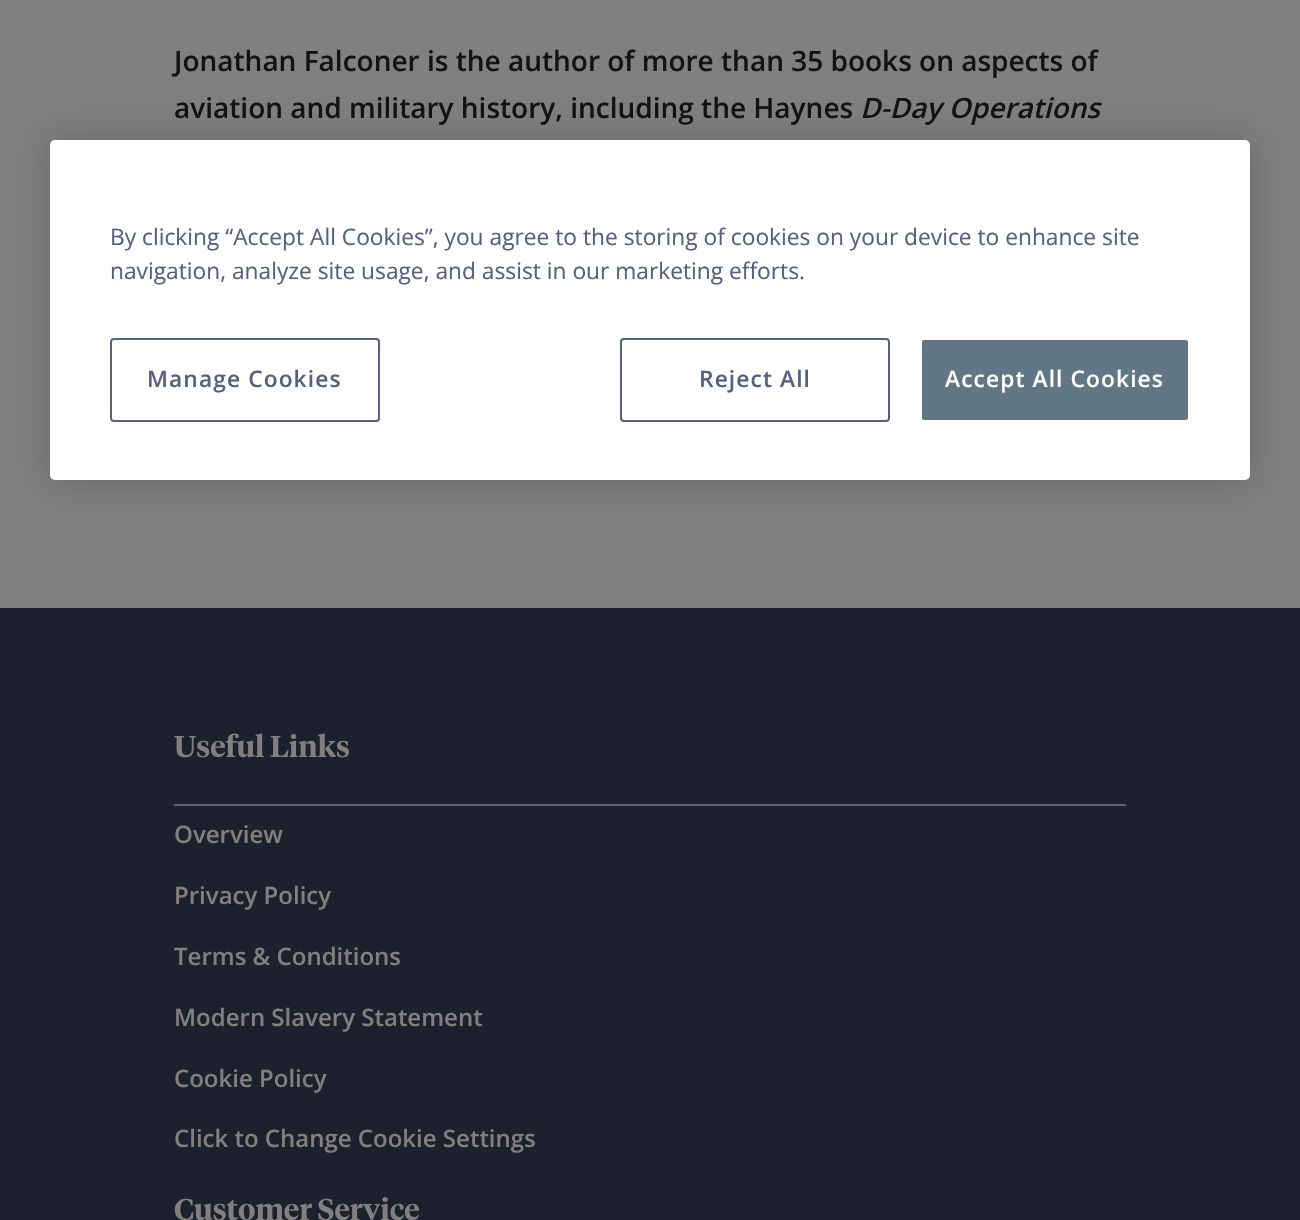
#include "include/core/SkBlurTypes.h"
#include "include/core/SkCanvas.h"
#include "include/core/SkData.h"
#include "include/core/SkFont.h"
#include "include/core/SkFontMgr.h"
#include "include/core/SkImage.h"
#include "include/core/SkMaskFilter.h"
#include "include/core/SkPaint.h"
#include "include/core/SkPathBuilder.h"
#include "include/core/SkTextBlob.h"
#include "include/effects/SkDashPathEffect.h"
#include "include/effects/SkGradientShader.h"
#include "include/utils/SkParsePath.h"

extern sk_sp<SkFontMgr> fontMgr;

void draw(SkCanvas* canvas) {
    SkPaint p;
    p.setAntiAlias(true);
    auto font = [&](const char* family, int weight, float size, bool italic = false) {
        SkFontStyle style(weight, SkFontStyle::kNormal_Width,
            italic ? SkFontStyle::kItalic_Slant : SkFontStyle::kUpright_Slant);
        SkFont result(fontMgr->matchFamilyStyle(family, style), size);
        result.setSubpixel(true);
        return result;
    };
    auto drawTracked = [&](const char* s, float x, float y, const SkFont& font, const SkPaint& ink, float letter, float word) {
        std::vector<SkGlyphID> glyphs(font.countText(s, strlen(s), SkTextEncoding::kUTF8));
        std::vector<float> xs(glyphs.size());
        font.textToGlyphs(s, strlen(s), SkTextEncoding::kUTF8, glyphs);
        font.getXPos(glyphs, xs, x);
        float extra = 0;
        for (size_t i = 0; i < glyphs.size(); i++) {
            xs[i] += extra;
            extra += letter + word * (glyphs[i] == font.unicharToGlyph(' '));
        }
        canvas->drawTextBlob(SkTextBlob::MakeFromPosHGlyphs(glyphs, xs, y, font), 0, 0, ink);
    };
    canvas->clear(0xFF808080);
    auto font1 = font("Open Sans", 600, 28);
    p.setColor(0xFF111315);
    canvas->drawString("Jonathan Falconer is the author of more than 35 books on aspects of", 174, 71, font1, p);
    canvas->drawString("aviation and military history, including the Haynes", 174, 118, font1, p);
    auto font2 = font("Open Sans", 600, 28, true);
    canvas->drawString("D-Day Operations", 860, 118, font2, p);
    p.setColor(0x33000000);
    p.setMaskFilter(SkMaskFilter::MakeBlur(kNormal_SkBlurStyle, 18));
    canvas->drawRoundRect(SkRect::MakeLTRB(50, 140, 1250, 480), 5, 5, p);
    p.setMaskFilter(nullptr);
    p.setColor(0xFFFFFFFF);
    canvas->drawRoundRect(SkRect::MakeLTRB(50, 140, 1250, 480), 5, 5, p);
    auto font3 = font("Open Sans", 400, 22.75f);
    p.setColor(0xFF575F80);
    canvas->drawString("By clicking “Accept All Cookies”, you agree to the storing of cookies on your device to enhance site", 110, 245, font3, p);
    canvas->drawString("navigation, analyze site usage, and assist in our marketing efforts.", 110, 279, font3, p);
    p.setStyle(SkPaint::kStroke_Style);
    p.setStrokeWidth(2);
    canvas->drawRoundRect(SkRect::MakeLTRB(111, 339, 379, 421), 3, 3, p);
    auto font4 = font("Open Sans", 600, 22.75f);
    p.setStyle(SkPaint::kFill_Style);
    drawTracked("Manage Cookies", 147, 387, font4, p, 1.1f, 0);
    p.setStyle(SkPaint::kStroke_Style);
    canvas->drawRoundRect(SkRect::MakeLTRB(621, 339, 889, 421), 3, 3, p);
    p.setStyle(SkPaint::kFill_Style);
    drawTracked("Reject All", 699, 387, font4, p, 1.1f, 0);
    p.setColor(0xFF627786);
    canvas->drawRoundRect(SkRect::MakeLTRB(921, 339, 1189, 421), 3, 3, p);
    p.setStyle(SkPaint::kStroke_Style);
    p.setColor(0xFFFFFFFF);
    canvas->drawRoundRect(SkRect::MakeLTRB(921, 339, 1189, 421), 3, 3, p);
    p.setStyle(SkPaint::kFill_Style);
    drawTracked("Accept All Cookies", 945, 387, font4, p, 1.1f, 0);
    p.setColor(0xFF1D202D);
    canvas->drawRect(SkRect::MakeLTRB(0, 608, 1300, 1220), p);
    p.setColor(0xFF62646D);
    canvas->drawRect(SkRect::MakeLTRB(174, 804, 1126, 806), p);
    auto font5 = font("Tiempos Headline", 600, 30);
    p.setColor(0xFF808080);
    canvas->drawString("Useful Links", 174, 757, font5, p);
    auto font6 = font("Open Sans", 600, 24);
    {
        const struct { const char* s; float x, y; } items[] = {
            {"Overview", 174, 843},
            {"Privacy Policy", 174, 904},
            {"Terms & Conditions", 174, 965},
            {"Modern Slavery Statement", 174, 1026},
            {"Cookie Policy", 174, 1087},
            {"Click to Change Cookie Settings", 174, 1147},
        };
        for (auto [s, x, y] : items) {
            canvas->drawString(s, x, y, font6, p);
        }
    }
    canvas->drawString("Customer Service", 174, 1220, font5, p);
}
